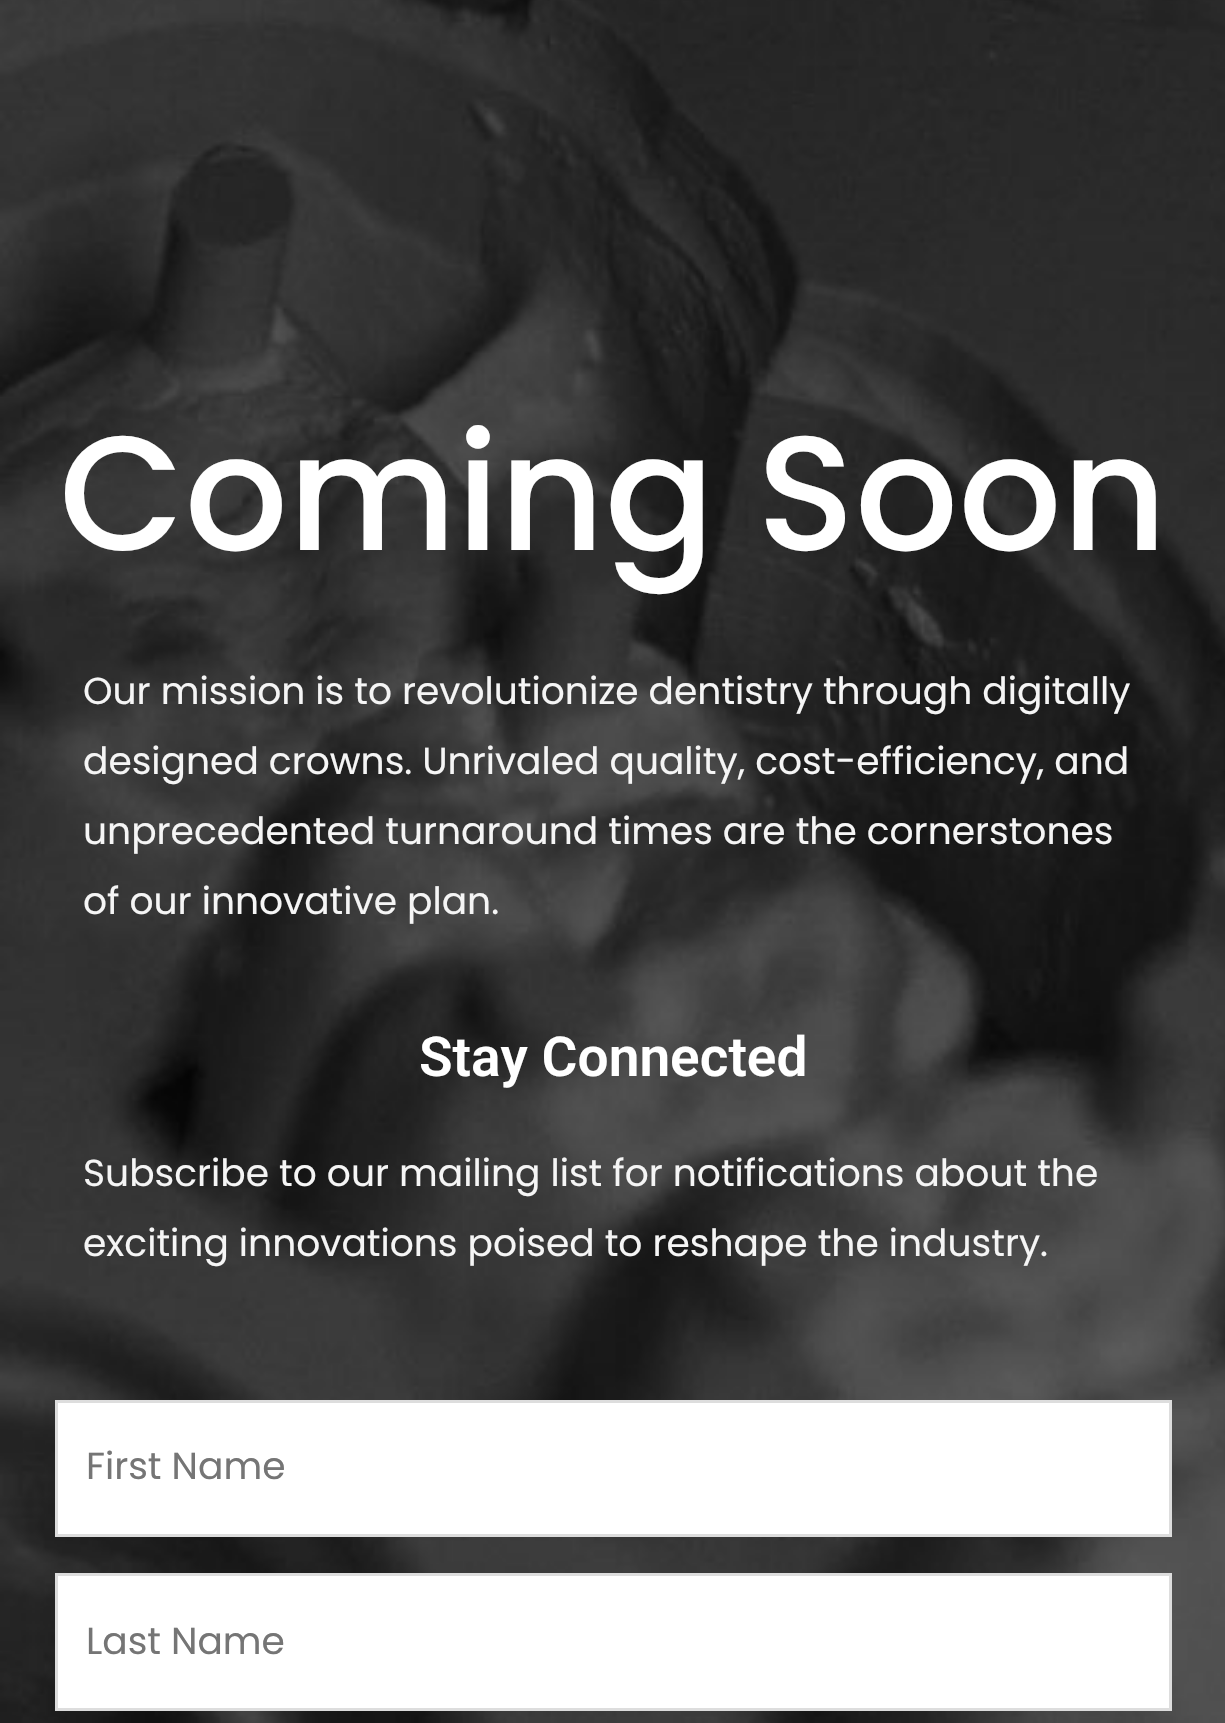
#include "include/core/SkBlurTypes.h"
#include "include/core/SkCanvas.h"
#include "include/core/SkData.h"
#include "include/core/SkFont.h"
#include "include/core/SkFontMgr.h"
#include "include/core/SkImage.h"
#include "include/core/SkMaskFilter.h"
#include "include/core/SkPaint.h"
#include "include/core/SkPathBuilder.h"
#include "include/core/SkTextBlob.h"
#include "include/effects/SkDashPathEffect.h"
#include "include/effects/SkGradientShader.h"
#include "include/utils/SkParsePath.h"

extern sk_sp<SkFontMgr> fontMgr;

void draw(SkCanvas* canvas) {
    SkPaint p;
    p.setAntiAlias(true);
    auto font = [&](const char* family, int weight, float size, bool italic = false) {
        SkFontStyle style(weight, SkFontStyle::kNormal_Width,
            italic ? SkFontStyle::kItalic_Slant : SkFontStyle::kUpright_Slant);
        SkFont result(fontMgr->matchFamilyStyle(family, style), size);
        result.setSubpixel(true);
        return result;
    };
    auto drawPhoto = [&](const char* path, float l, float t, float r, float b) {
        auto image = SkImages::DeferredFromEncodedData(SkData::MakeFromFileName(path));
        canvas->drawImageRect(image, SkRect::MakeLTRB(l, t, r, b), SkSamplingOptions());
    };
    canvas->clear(0xFFFFFFFF);
    drawPhoto("media/1.png", 0, 0, 1225, 1723);
    auto font1 = font("Poppins", 500, 162.25f);
    p.setColor(0xFFFFFFFF);
    canvas->drawString("Coming Soon", 59, 550, font1, p);
    auto font2 = font("Poppins", 400, 37.6f);
    p.setColor(0xFFF5F5F5);
    {
        const struct { const char* s; float x, y; } items[] = {
            {"Our mission is to revolutionize dentistry through digitally", 83, 704},
            {"designed crowns. Unrivaled quality, cost-efficiency, and", 83, 774},
            {"unprecedented turnaround times are the cornerstones", 83, 844},
            {"of our innovative plan.", 83, 914},
        };
        for (auto [s, x, y] : items) {
            canvas->drawString(s, x, y, font2, p);
        }
    }
    auto font3 = font("Roboto", 600, 55);
    p.setColor(0xFFFFFFFF);
    canvas->drawString("Stay Connected", 419, 1076, font3, p);
    p.setColor(0xFFF5F5F5);
    canvas->drawString("Subscribe to our mailing list for notifications about the", 83, 1186, font2, p);
    canvas->drawString("exciting innovations poised to reshape the industry.", 83, 1256, font2, p);
    p.setColor(0xFFFFFFFF);
    canvas->drawRect(SkRect::MakeLTRB(56.5f, 1401.5f, 1170.5f, 1535.5f), p);
    p.setStyle(SkPaint::kStroke_Style);
    p.setStrokeWidth(3);
    p.setColor(0xFFDDDDDD);
    canvas->drawRect(SkRect::MakeLTRB(56.5f, 1401.5f, 1170.5f, 1535.5f), p);
    p.setStyle(SkPaint::kFill_Style);
    p.setColor(0xFF757575);
    canvas->drawString("First Name", 86, 1479, font2, p);
    p.setColor(0xFFFFFFFF);
    canvas->drawRect(SkRect::MakeLTRB(56.5f, 1574.5f, 1170.5f, 1709.5f), p);
    p.setStyle(SkPaint::kStroke_Style);
    p.setColor(0xFFDDDDDD);
    canvas->drawRect(SkRect::MakeLTRB(56.5f, 1574.5f, 1170.5f, 1709.5f), p);
    p.setStyle(SkPaint::kFill_Style);
    p.setColor(0xFF757575);
    canvas->drawString("Last Name", 86, 1654, font2, p);
}
